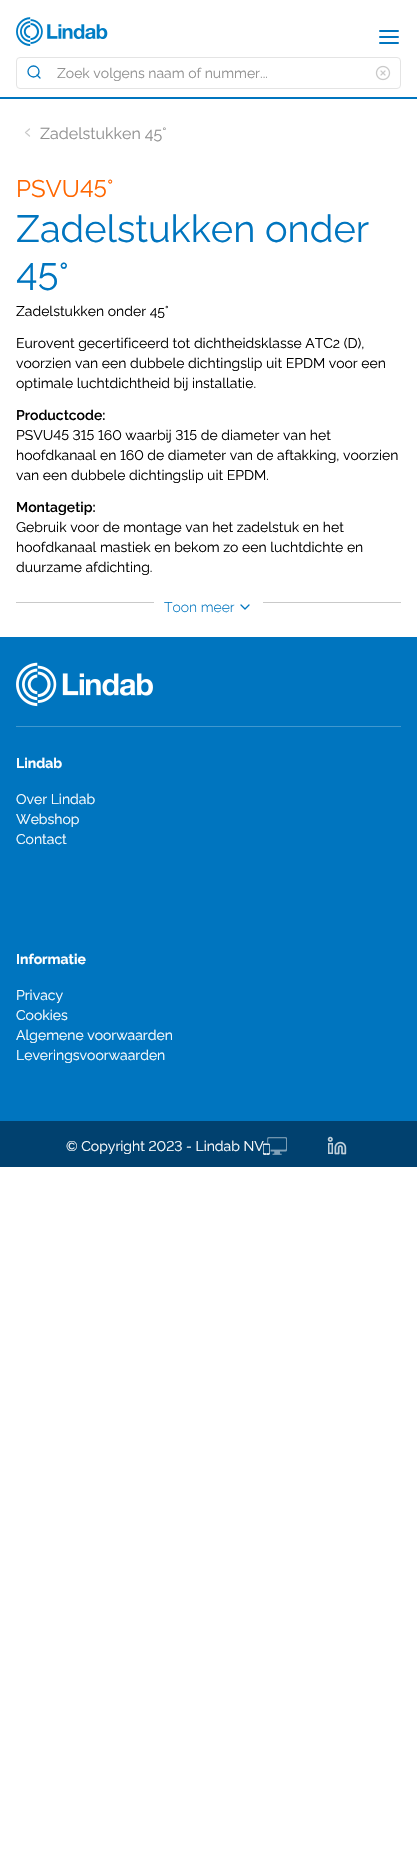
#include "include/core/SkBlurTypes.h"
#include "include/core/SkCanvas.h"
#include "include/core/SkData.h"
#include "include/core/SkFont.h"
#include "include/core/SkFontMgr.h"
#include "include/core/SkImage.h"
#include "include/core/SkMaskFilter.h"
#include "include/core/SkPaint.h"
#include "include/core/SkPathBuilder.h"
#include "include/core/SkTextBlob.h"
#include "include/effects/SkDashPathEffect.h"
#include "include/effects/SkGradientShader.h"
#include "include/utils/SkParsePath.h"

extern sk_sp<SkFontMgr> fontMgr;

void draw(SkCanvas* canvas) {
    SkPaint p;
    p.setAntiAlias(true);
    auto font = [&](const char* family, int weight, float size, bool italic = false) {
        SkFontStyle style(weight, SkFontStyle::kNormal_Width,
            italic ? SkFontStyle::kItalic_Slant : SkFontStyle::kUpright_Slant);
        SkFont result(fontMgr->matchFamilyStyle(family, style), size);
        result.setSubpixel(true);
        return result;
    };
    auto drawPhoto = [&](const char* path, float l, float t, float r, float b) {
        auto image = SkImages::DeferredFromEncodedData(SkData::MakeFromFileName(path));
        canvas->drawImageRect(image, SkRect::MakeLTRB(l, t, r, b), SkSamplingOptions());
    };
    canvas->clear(0xFFFFFFFF);
    p.setColor(0xFF0075BF);
    canvas->drawRect(SkRect::MakeLTRB(0, 97, 417, 99), p);
    drawPhoto("media/1.png", 16, 17, 108, 46);
    p.setStyle(SkPaint::kStroke_Style);
    p.setStrokeWidth(2);
    p.setStrokeCap(SkPaint::kRound_Cap);
    p.setStrokeJoin(SkPaint::kRound_Join);
    canvas->drawPath(SkPathBuilder().moveTo(380, 37).lineTo(398, 37).moveTo(380, 31).lineTo(398, 31).moveTo(380, 43).lineTo(398, 43).detach(), p);
    p.setStrokeWidth(1);
    p.setStrokeCap(SkPaint::kButt_Cap);
    p.setStrokeJoin(SkPaint::kMiter_Join);
    p.setColor(0xFFE4E4E4);
    canvas->drawRoundRect(SkRect::MakeLTRB(16.5f, 57.5f, 400.5f, 88.5f), 3.5f, 3.5f, p);
    p.setStrokeWidth(1.3f);
    p.setColor(0xFF0075BF);
    canvas->drawCircle(33.5f, 71.5f, 5.5f, p);
    p.setStrokeCap(SkPaint::kRound_Cap);
    p.setStrokeJoin(SkPaint::kRound_Join);
    canvas->drawPath(SkPathBuilder().moveTo(40, 78).lineTo(37, 75).detach(), p);
    auto font1 = font("Raleway", 100, 14);
    p.setStyle(SkPaint::kFill_Style);
    p.setColor(0xFF919191);
    canvas->drawString("Zoek volgens naam of nummer...", 57, 78, font1, p);
    drawPhoto("media/2.png", 375, 65, 391, 81);
    p.setStyle(SkPaint::kStroke_Style);
    p.setStrokeWidth(1.2f);
    p.setColor(0xFFC9C9C9);
    canvas->drawPath(SkPathBuilder().moveTo(29.5f, 136).lineTo(25.5f, 132.5f).lineTo(29.5f, 129).detach(), p);
    auto font2 = font("Raleway", 100, 16);
    p.setStyle(SkPaint::kFill_Style);
    p.setColor(0xFF919191);
    canvas->drawString("Zadelstukken 45°", 40, 139, font2, p);
    auto font3 = font("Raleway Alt", 100, 24);
    p.setColor(0xFFFF6600);
    canvas->drawString("PSVU45°", 16, 197, font3, p);
    auto font4 = font("Raleway", 100, 38);
    p.setColor(0xFF0075BF);
    canvas->drawString("Zadelstukken onder", 16, 242, font4, p);
    auto font5 = font("Raleway Alt", 100, 38);
    canvas->drawString("45°", 16, 290, font5, p);
    p.setColor(0xFF000000);
    {
        const struct { const char* s; float x, y; } items[] = {
            {"Zadelstukken onder 45°", 16, 316},
            {"Eurovent gecertificeerd tot dichtheidsklasse ATC2 (D),", 16, 348},
            {"voorzien van een dubbele dichtingslip uit EPDM voor een", 16, 368},
            {"optimale luchtdichtheid bij installatie.", 16, 388},
        };
        for (auto [s, x, y] : items) {
            canvas->drawString(s, x, y, font1, p);
        }
    }
    auto font6 = font("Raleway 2", 100, 14);
    canvas->drawString("Productcode:", 16, 420, font6, p);
    auto font7 = font("Raleway Alt", 100, 14);
    canvas->drawString("PSVU45 315 160 waarbij 315 de diameter van het", 16, 440, font7, p);
    canvas->drawString("hoofdkanaal en 160 de diameter van de aftakking, voorzien", 16, 460, font7, p);
    canvas->drawString("van een dubbele dichtingslip uit EPDM.", 16, 480, font1, p);
    canvas->drawString("Montagetip:", 16, 512, font6, p);
    {
        const struct { const char* s; float x, y; } items[] = {
            {"Gebruik voor de montage van het zadelstuk en het", 16, 532},
            {"hoofdkanaal mastiek en bekom zo een luchtdichte en", 16, 552},
            {"duurzame afdichting.", 16, 572},
        };
        for (auto [s, x, y] : items) {
            canvas->drawString(s, x, y, font1, p);
        }
    }
    p.setColor(0xFFC9C9C9);
    canvas->drawRect(SkRect::MakeLTRB(16, 602, 401, 603), p);
    p.setColor(0xFFFFFFFF);
    canvas->drawRect(SkRect::MakeLTRB(154, 602, 263, 603), p);
    auto font8 = font("Raleway", 300, 14);
    p.setColor(0xFF0075BF);
    canvas->drawString("Toon meer", 164, 612, font8, p);
    p.setStyle(SkPaint::kStroke_Style);
    p.setStrokeWidth(1.3f);
    canvas->drawPath(SkPathBuilder().moveTo(241, 605).lineTo(245, 609).lineTo(249, 605).detach(), p);
    p.setStyle(SkPaint::kFill_Style);
    canvas->drawRect(SkRect::MakeLTRB(0, 637, 417, 1121), p);
    drawPhoto("media/3.png", 16, 662, 153, 707);
    p.setColor(0xFF4098CF);
    canvas->drawRect(SkRect::MakeLTRB(16, 726, 401, 727), p);
    auto font9 = font("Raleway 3", 100, 14);
    p.setColor(0xFFFFFFFF);
    canvas->drawString("Lindab", 16, 768, font9, p);
    {
        const struct { const char* s; float x, y; } items[] = {
            {"Over Lindab", 16, 804},
            {"Webshop", 16, 824},
            {"Contact", 16, 844},
        };
        for (auto [s, x, y] : items) {
            canvas->drawString(s, x, y, font1, p);
        }
    }
    canvas->drawString("Informatie", 16, 964, font9, p);
    {
        const struct { const char* s; float x, y; } items[] = {
            {"Privacy", 16, 1000},
            {"Cookies", 16, 1020},
            {"Algemene voorwaarden", 16, 1040},
            {"Leveringsvoorwaarden", 16, 1060},
        };
        for (auto [s, x, y] : items) {
            canvas->drawString(s, x, y, font1, p);
        }
    }
    p.setColor(0xFF01416F);
    canvas->drawRect(SkRect::MakeLTRB(0, 1121, 417, 1167), p);
    p.setColor(0xFFFFFFFF);
    canvas->drawString("© Copyright 2023 - Lindab NV", 66, 1151, font7, p);
    drawPhoto("media/4.png", 263, 1137, 287, 1155);
    drawPhoto("media/5.png", 327, 1136, 347, 1155);
}
